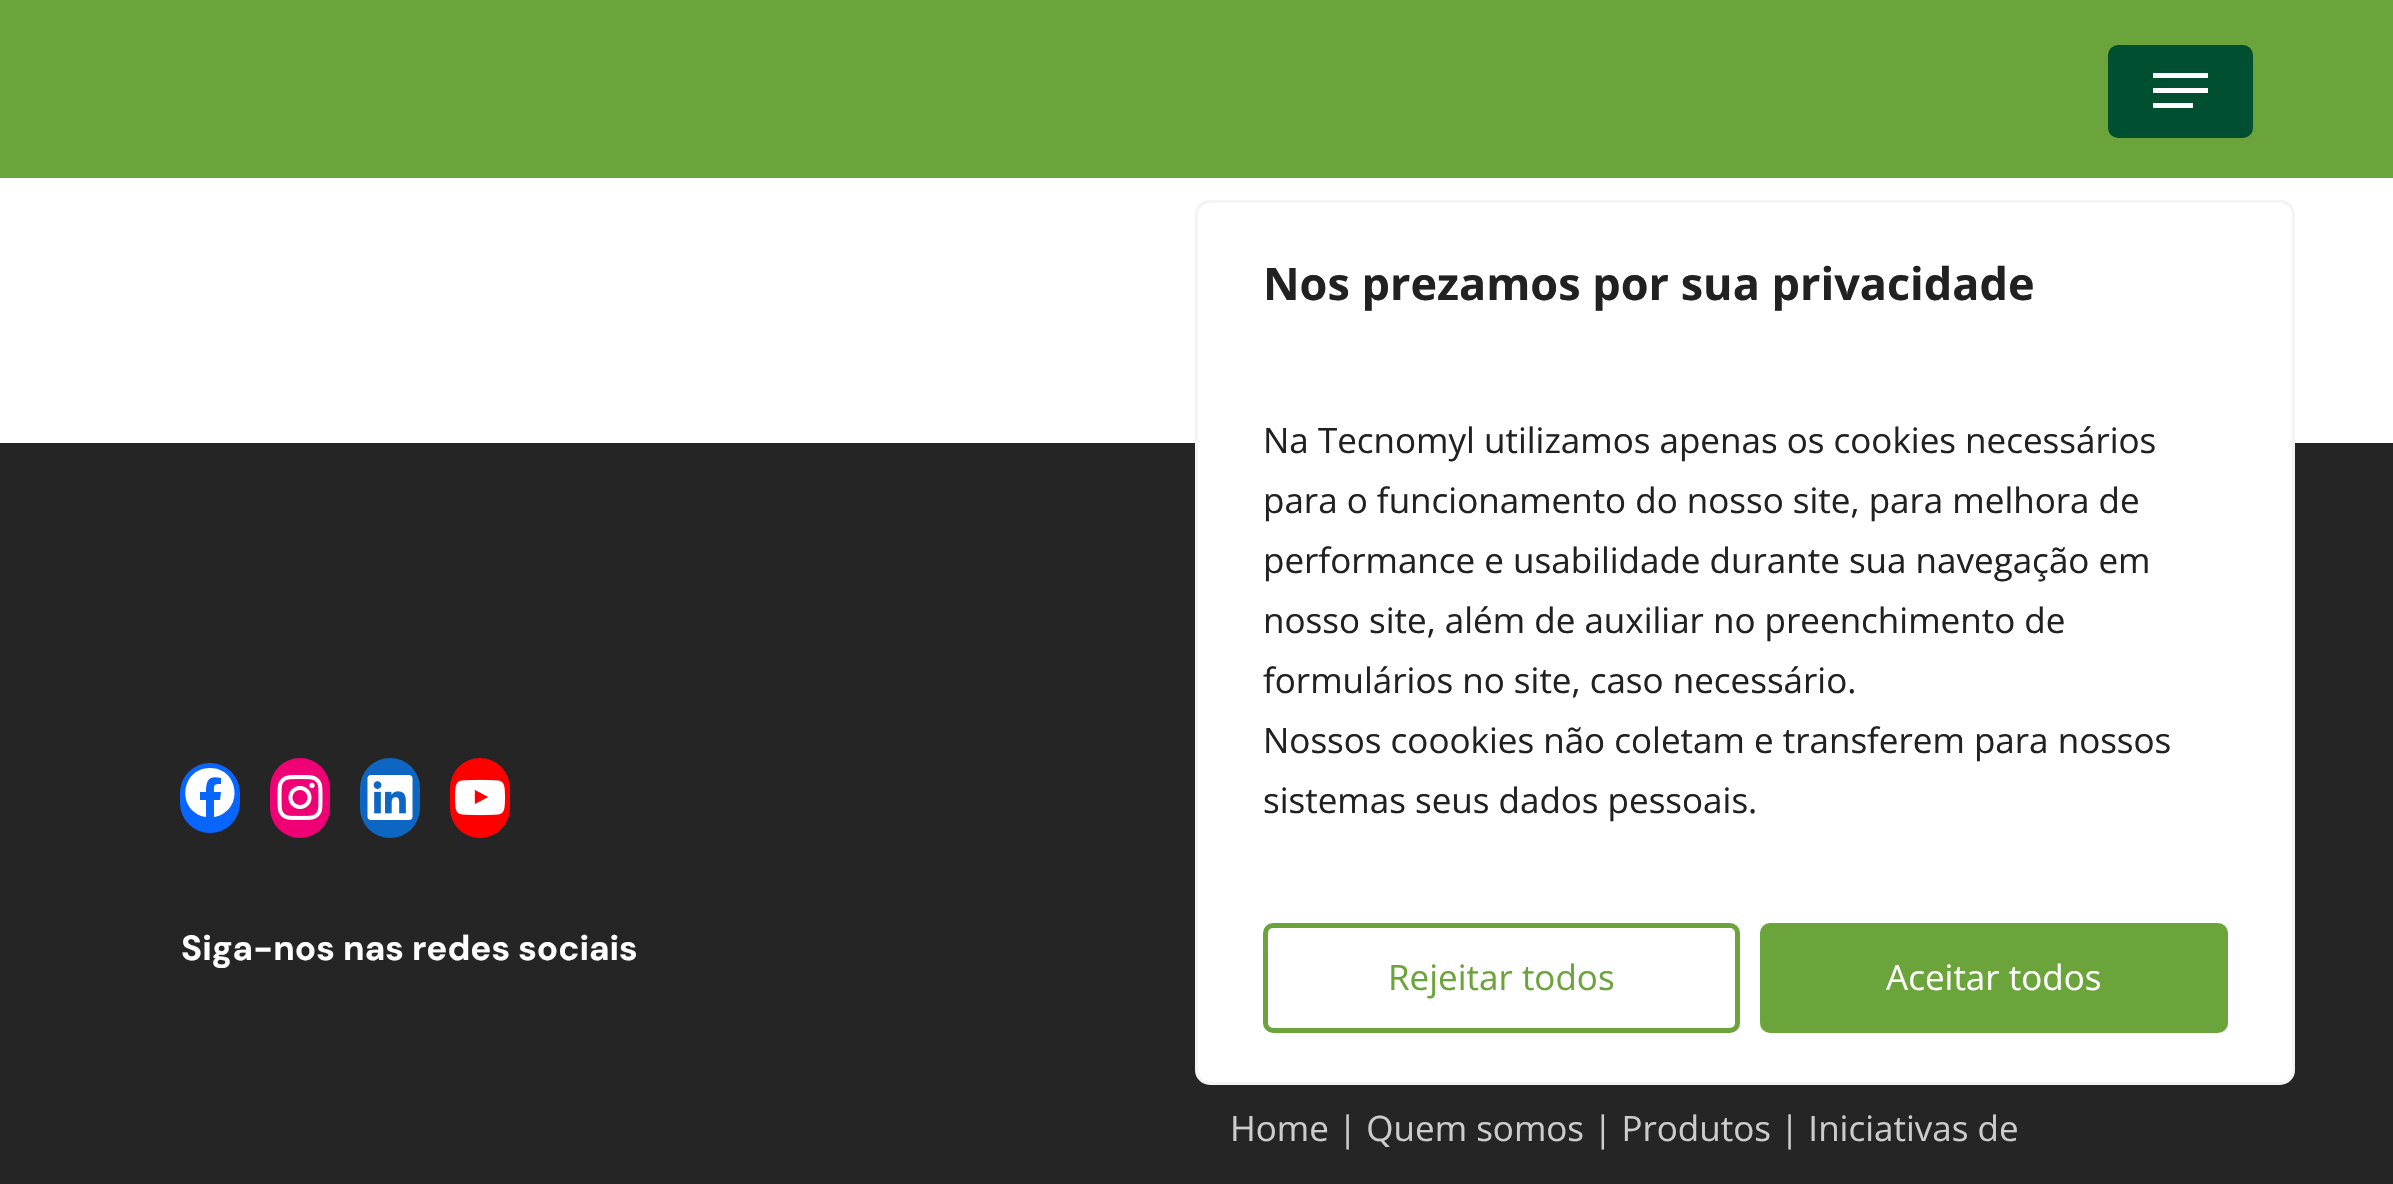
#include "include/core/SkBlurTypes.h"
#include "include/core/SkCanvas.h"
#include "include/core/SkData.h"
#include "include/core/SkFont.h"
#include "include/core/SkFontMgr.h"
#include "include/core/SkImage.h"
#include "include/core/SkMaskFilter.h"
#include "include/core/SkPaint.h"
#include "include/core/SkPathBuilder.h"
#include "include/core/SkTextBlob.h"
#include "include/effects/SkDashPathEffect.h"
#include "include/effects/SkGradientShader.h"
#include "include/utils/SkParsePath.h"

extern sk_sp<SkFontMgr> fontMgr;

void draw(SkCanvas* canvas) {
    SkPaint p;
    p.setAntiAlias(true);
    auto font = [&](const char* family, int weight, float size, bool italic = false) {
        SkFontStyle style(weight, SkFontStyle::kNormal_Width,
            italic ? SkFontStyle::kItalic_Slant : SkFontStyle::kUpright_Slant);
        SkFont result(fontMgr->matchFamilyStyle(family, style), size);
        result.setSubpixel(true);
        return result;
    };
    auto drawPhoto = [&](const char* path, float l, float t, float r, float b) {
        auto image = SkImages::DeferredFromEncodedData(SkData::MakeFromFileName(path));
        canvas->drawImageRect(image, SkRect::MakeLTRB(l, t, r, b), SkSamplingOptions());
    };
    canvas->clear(0xFF252525);
    p.setColor(0xFF6BA43A);
    canvas->drawRect(SkRect::MakeLTRB(0, 0, 2393, 178), p);
    p.setColor(0xFFFFFFFF);
    canvas->drawRect(SkRect::MakeLTRB(0, 178, 2393, 443), p);
    canvas->save();
    canvas->clipPath(SkPathBuilder().moveTo(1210, 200).lineTo(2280, 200).cubicTo(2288.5f, 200, 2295, 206.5f, 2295, 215).lineTo(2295, 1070).cubicTo(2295, 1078.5f, 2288.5f, 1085, 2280, 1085).lineTo(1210, 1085).cubicTo(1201.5f, 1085, 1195, 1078.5f, 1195, 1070).lineTo(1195, 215).cubicTo(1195, 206.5f, 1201.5f, 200, 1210, 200).close().detach(), true);
    p.setColor(0x4DACABAB);
    p.setMaskFilter(SkMaskFilter::MakeBlur(kNormal_SkBlurStyle, 12.5f));
    canvas->drawRoundRect(SkRect::MakeLTRB(1195, 198, 2295, 1083), 15, 15, p);
    p.setMaskFilter(nullptr);
    canvas->restore();
    p.setColor(0xFFFFFFFF);
    canvas->drawRoundRect(SkRect::MakeLTRB(1196.5f, 201.5f, 2293.5f, 1083.5f), 13.5f, 13.5f, p);
    p.setStyle(SkPaint::kStroke_Style);
    p.setStrokeWidth(3);
    p.setColor(0xFFF4F4F4);
    canvas->drawRoundRect(SkRect::MakeLTRB(1196.5f, 201.5f, 2293.5f, 1083.5f), 13.5f, 13.5f, p);
    auto font1 = font("Open Sans", 700, 45);
    p.setStyle(SkPaint::kFill_Style);
    p.setColor(0xFF212121);
    canvas->drawString("Nos prezamos por sua privacidade", 1263, 300, font1, p);
    auto font2 = font("Open Sans", 400, 35);
    {
        const struct { const char* s; float x, y; } items[] = {
            {"Na Tecnomyl utilizamos apenas os cookies necessários", 1263, 453},
            {"para o funcionamento do nosso site, para melhora de", 1263, 513},
            {"performance e usabilidade durante sua navegação em", 1263, 573},
            {"nosso site, além de auxiliar no preenchimento de", 1263, 633},
            {"formulários no site, caso necessário.", 1263, 693},
            {"Nossos coookies não coletam e transferem para nossos", 1263, 753},
            {"sistemas seus dados pessoais.", 1263, 813},
        };
        for (auto [s, x, y] : items) {
            canvas->drawString(s, x, y, font2, p);
        }
    }
    p.setStyle(SkPaint::kStroke_Style);
    p.setStrokeWidth(5);
    p.setColor(0xFF6BA43A);
    canvas->drawRoundRect(SkRect::MakeLTRB(1265.5f, 925.5f, 1737.5f, 1030.5f), 7.5f, 7.5f, p);
    p.setStyle(SkPaint::kFill_Style);
    canvas->drawString("Rejeitar todos", 1388, 990, font2, p);
    canvas->drawRoundRect(SkRect::MakeLTRB(1762.5f, 925.5f, 2225.5f, 1030.5f), 7.5f, 7.5f, p);
    p.setStyle(SkPaint::kStroke_Style);
    canvas->drawRoundRect(SkRect::MakeLTRB(1762.5f, 925.5f, 2225.5f, 1030.5f), 7.5f, 7.5f, p);
    p.setStyle(SkPaint::kFill_Style);
    p.setColor(0xFFFFFFFF);
    canvas->drawString("Aceitar todos", 1886, 990, font2, p);
    p.setColor(0xFF004F30);
    canvas->drawRoundRect(SkRect::MakeLTRB(2108, 45, 2253, 138), 10, 10, p);
    {
        const struct { float l, t, r, b; SkColor color; } items[] = {
            {2153, 73, 2208, 78, 0xFFFFFFFF},
            {2153, 103, 2193, 108, 0xFFFFFFFF},
            {2153, 88, 2208, 93, 0xFFFFFFFF},
        };
        for (auto [l, t, r, b, color] : items) {
            p.setColor(color);
            canvas->drawRect(SkRect::MakeLTRB(l, t, r, b), p);
        }
    }
    p.setColor(0xFF0866FF);
    canvas->drawRoundRect(SkRect::MakeLTRB(180, 763, 240, 833), 30, 30, p);
    p.setColor(0xFFFFFFFF);
    canvas->drawPath(SkPathBuilder().moveTo(210, 768).cubicTo(180, 768, 176, 812, 206, 817).lineTo(206, 800).lineTo(200, 800).lineTo(200, 792).lineTo(206, 792).cubicTo(206, 781, 208, 775, 221, 778).lineTo(221, 784).cubicTo(213, 784, 214, 785, 214, 792).lineTo(221, 792).lineTo(220, 800).lineTo(214, 800).lineTo(214, 817).cubicTo(244, 812, 240, 768, 210, 768).close().detach(), p);
    p.setColor(0xFFF00075);
    canvas->drawRoundRect(SkRect::MakeLTRB(270, 758, 330, 838), 30, 30, p);
    drawPhoto("media/1.png", 277, 775, 323, 820);
    p.setColor(0xFF0D66C2);
    canvas->drawRoundRect(SkRect::MakeLTRB(360, 758, 420, 838), 30, 30, p);
    drawPhoto("media/2.png", 367, 775, 413, 820);
    p.setColor(0xFFFF0000);
    canvas->drawRoundRect(SkRect::MakeLTRB(450, 758, 510, 838), 30, 30, p);
    drawPhoto("media/3.png", 455, 779, 505, 816);
    auto font3 = font("DM Sans", 700, 35);
    p.setColor(0xFFFFFFFF);
    canvas->drawString("Siga-nos nas redes sociais", 181, 960, font3, p);
    p.setColor(0xFFCCCCCC);
    canvas->drawString("Home | Quem somos | Produtos | Iniciativas de", 1230, 1141, font2, p);
}
